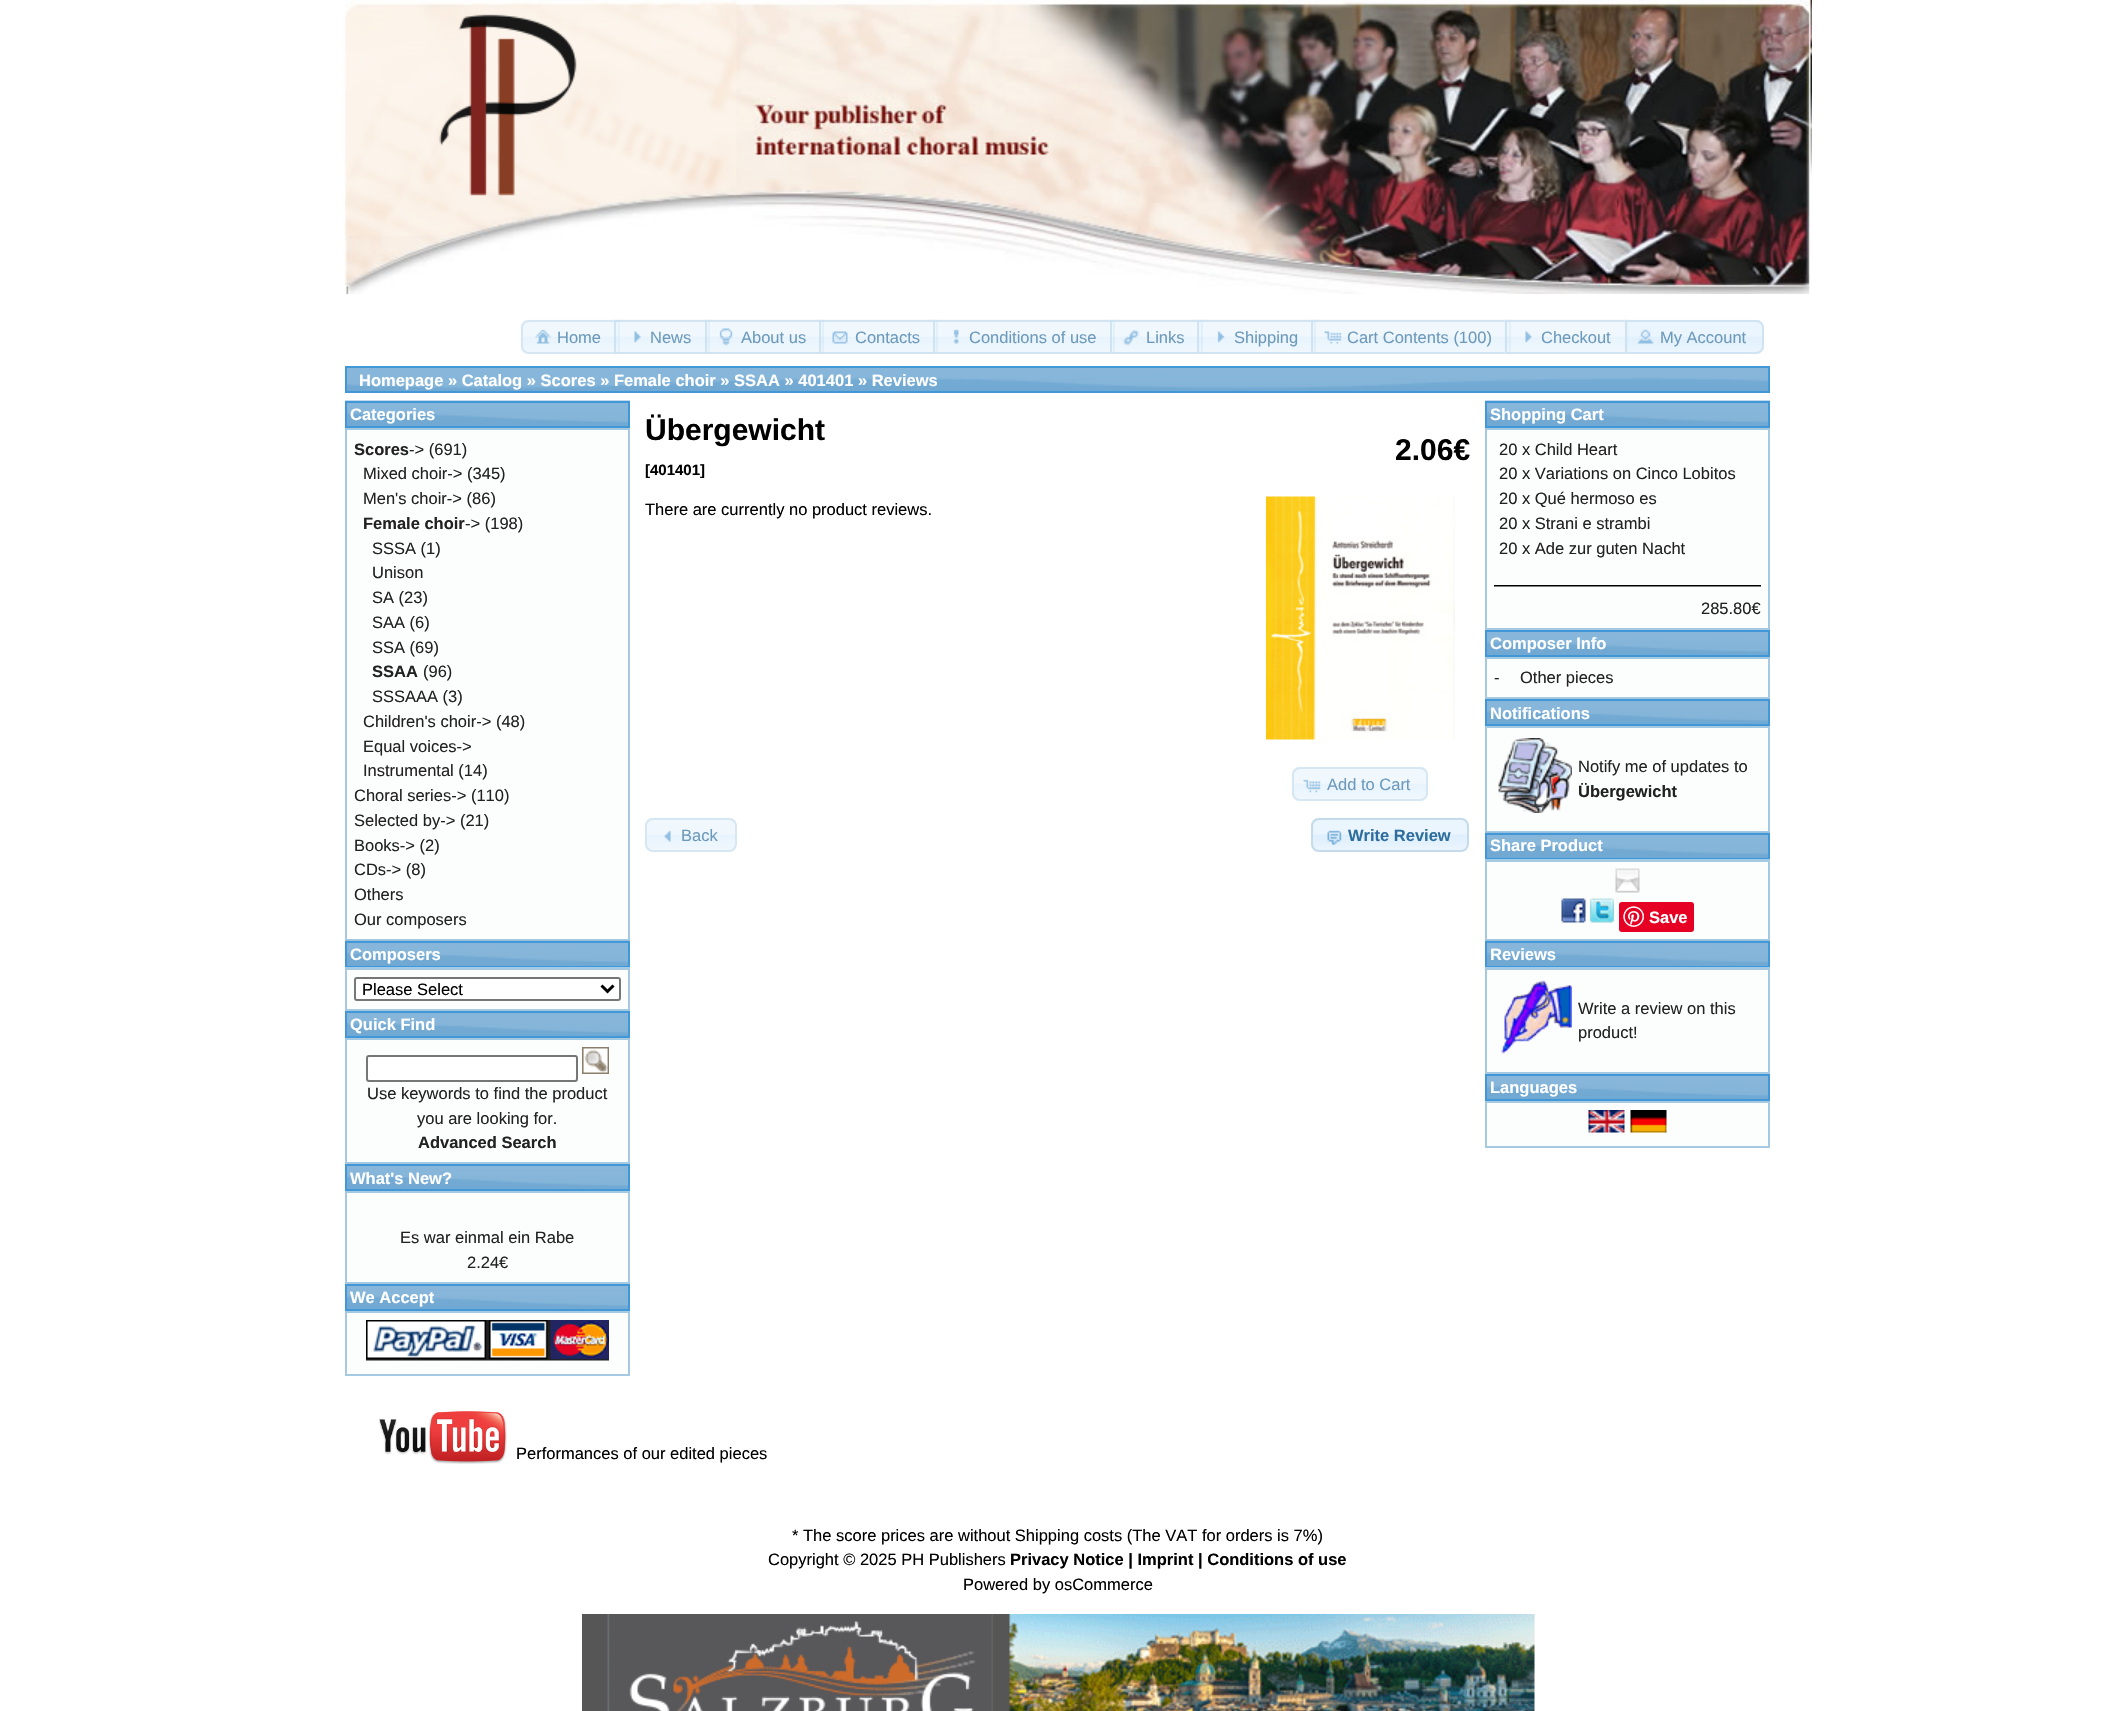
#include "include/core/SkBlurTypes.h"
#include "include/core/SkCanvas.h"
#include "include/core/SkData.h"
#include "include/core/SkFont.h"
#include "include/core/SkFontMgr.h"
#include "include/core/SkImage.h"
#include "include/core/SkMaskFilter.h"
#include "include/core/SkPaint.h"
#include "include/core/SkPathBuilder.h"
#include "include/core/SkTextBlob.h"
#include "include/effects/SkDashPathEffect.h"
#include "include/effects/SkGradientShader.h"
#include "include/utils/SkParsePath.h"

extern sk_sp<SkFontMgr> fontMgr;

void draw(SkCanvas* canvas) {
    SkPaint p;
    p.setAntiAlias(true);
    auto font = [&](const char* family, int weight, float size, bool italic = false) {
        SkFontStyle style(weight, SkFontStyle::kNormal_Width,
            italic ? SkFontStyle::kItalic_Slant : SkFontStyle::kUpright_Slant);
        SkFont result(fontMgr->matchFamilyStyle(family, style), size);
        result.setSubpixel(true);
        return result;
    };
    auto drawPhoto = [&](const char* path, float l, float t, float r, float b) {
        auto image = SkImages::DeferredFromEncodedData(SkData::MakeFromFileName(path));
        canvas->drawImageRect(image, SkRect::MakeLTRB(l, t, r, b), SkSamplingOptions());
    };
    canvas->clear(0xFFFFFFFF);
    drawPhoto("media/1.png", 345, 0, 1812, 294);
    drawPhoto("media/2.png", 520, 319, 619, 354);
    p.setStyle(SkPaint::kStroke_Style);
    p.setStrokeWidth(2);
    p.setColor(0xFFD6E6F2);
    canvas->drawPath(SkPathBuilder().moveTo(529, 321).lineTo(619, 321).lineTo(619, 353).lineTo(529, 353).cubicTo(525, 353, 522, 350, 522, 346).lineTo(522, 328).cubicTo(522, 324, 525, 321, 529, 321).close().detach(), p);
    drawPhoto("media/3.png", 535, 329, 551, 344);
    auto font1 = font("Liberation Sans", 400, 16.5f);
    p.setStyle(SkPaint::kFill_Style);
    p.setColor(0xFF6D9ABB);
    canvas->drawString("Home", 557, 343, font1, p);
    drawPhoto("media/4.png", 613, 319, 710, 354);
    p.setStyle(SkPaint::kStroke_Style);
    p.setColor(0xB3C5DBEC);
    canvas->drawRect(SkRect::MakeLTRB(615, 321, 709, 353), p);
    drawPhoto("media/5.png", 634, 331, 641, 343);
    p.setStyle(SkPaint::kFill_Style);
    p.setColor(0xFF6D9ABB);
    canvas->drawString("News", 650, 343, font1, p);
    drawPhoto("media/6.png", 705, 319, 824, 354);
    p.setStyle(SkPaint::kStroke_Style);
    p.setColor(0xB3C5DBEC);
    canvas->drawRect(SkRect::MakeLTRB(706, 321, 823, 353), p);
    drawPhoto("media/7.png", 719, 328, 733, 346);
    p.setStyle(SkPaint::kFill_Style);
    p.setColor(0xFF6D9ABB);
    canvas->drawString("About us", 741, 343, font1, p);
    drawPhoto("media/6.png", 819, 319, 938, 354);
    p.setStyle(SkPaint::kStroke_Style);
    p.setColor(0xB3C5DBEC);
    canvas->drawRect(SkRect::MakeLTRB(820, 321, 937, 353), p);
    drawPhoto("media/8.png", 832, 331, 848, 344);
    p.setStyle(SkPaint::kFill_Style);
    p.setColor(0xFF6D9ABB);
    canvas->drawString("Contacts", 855, 343, font1, p);
    drawPhoto("media/9.png", 933, 319, 1115, 354);
    p.setStyle(SkPaint::kStroke_Style);
    p.setColor(0xB3C5DBEC);
    canvas->drawRect(SkRect::MakeLTRB(934, 321, 1114, 353), p);
    drawPhoto("media/10.png", 953, 329, 959, 344);
    p.setStyle(SkPaint::kFill_Style);
    p.setColor(0xFF6D9ABB);
    canvas->drawString("Conditions of use", 969, 343, font1, p);
    drawPhoto("media/11.png", 1110, 319, 1203, 354);
    p.setStyle(SkPaint::kStroke_Style);
    p.setColor(0xB3C5DBEC);
    canvas->drawRect(SkRect::MakeLTRB(1111, 321, 1202, 353), p);
    drawPhoto("media/12.png", 1123, 329, 1140, 346);
    p.setStyle(SkPaint::kFill_Style);
    p.setColor(0xFF6D9ABB);
    canvas->drawString("Links", 1146, 343, font1, p);
    drawPhoto("media/13.png", 1197, 319, 1316, 354);
    p.setStyle(SkPaint::kStroke_Style);
    p.setColor(0xB3C5DBEC);
    canvas->drawRect(SkRect::MakeLTRB(1198, 321, 1315, 353), p);
    drawPhoto("media/14.png", 1217, 331, 1225, 343);
    p.setStyle(SkPaint::kFill_Style);
    p.setColor(0xFF6D9ABB);
    canvas->drawString("Shipping", 1234, 343, font1, p);
    drawPhoto("media/15.png", 1311, 319, 1511, 354);
    p.setStyle(SkPaint::kStroke_Style);
    p.setColor(0xB3C5DBEC);
    canvas->drawRect(SkRect::MakeLTRB(1312, 321, 1510, 353), p);
    drawPhoto("media/16.png", 1324, 331, 1342, 344);
    p.setStyle(SkPaint::kFill_Style);
    p.setColor(0xFF6D9ABB);
    canvas->drawString("Cart Contents (100)", 1347, 343, font1, p);
    drawPhoto("media/17.png", 1504, 319, 1629, 354);
    p.setStyle(SkPaint::kStroke_Style);
    p.setColor(0xB3C5DBEC);
    canvas->drawRect(SkRect::MakeLTRB(1506, 321, 1628, 353), p);
    drawPhoto("media/5.png", 1525, 331, 1532, 343);
    p.setStyle(SkPaint::kFill_Style);
    p.setColor(0xFF6D9ABB);
    canvas->drawString("Checkout", 1541, 343, font1, p);
    p.setColor(0xB3DFEFFC);
    canvas->drawPath(SkPathBuilder().moveTo(1625, 320).lineTo(1756, 320).cubicTo(1760.5f, 320, 1764, 323.5f, 1764, 328).lineTo(1764, 346).cubicTo(1764, 350.5f, 1760.5f, 354, 1756, 354).lineTo(1625, 354).close().detach(), p);
    drawPhoto("media/18.png", 1624, 319, 1764, 354);
    p.setStyle(SkPaint::kStroke_Style);
    p.setColor(0xB3C5DBEC);
    canvas->drawPath(SkPathBuilder().moveTo(1626, 321).lineTo(1756, 321).cubicTo(1760, 321, 1763, 324, 1763, 328).lineTo(1763, 346).cubicTo(1763, 350, 1760, 353, 1756, 353).lineTo(1626, 353).close().detach(), p);
    drawPhoto("media/19.png", 1637, 329, 1654, 344);
    p.setStyle(SkPaint::kFill_Style);
    p.setColor(0xFF6D9ABB);
    canvas->drawString("My Account", 1660, 343, font1, p);
    drawPhoto("media/20.png", 347, 368, 1768, 391);
    p.setStyle(SkPaint::kStroke_Style);
    p.setColor(0xFF4297D7);
    canvas->drawRect(SkRect::MakeLTRB(346, 367, 1769, 392), p);
    auto font2 = font("Liberation Sans", 700, 16.5f);
    p.setStyle(SkPaint::kFill_Style);
    p.setColor(0xFFFFFFFF);
    canvas->drawString("Homepage » Catalog » Scores » Female choir » SSAA » 401401 » Reviews", 359, 386, font2, p);
    drawPhoto("media/21.png", 345, 400, 630, 426);
    p.setStyle(SkPaint::kStroke_Style);
    p.setColor(0xFF4297D7);
    canvas->drawRect(SkRect::MakeLTRB(346, 402, 629, 427), p);
    p.setStyle(SkPaint::kFill_Style);
    p.setColor(0xFFFFFFFF);
    canvas->drawString("Categories", 350, 420, font2, p);
    p.setColor(0xFFFCFDFD);
    canvas->drawRect(SkRect::MakeLTRB(346, 429, 629, 940), p);
    p.setStyle(SkPaint::kStroke_Style);
    p.setColor(0xFFA6C9E2);
    canvas->drawRect(SkRect::MakeLTRB(346, 429, 629, 940), p);
    p.setStyle(SkPaint::kFill_Style);
    p.setColor(0xFF222222);
    canvas->drawString("Scores", 354, 455, font2, p);
    {
        const struct { const char* s; float x, y; } items[] = {
            {"-> (691)", 409, 455},
            {"Mixed choir-> (345)", 363, 479},
            {"Men's choir-> (86)", 363, 504},
        };
        for (auto [s, x, y] : items) {
            canvas->drawString(s, x, y, font1, p);
        }
    }
    canvas->drawString("Female choir", 363, 529, font2, p);
    {
        const struct { const char* s; float x, y; } items[] = {
            {"-> (198)", 465, 529},
            {"SSSA (1)", 372, 554},
            {"Unison", 372, 578},
            {"SA (23)", 372, 603},
            {"SAA (6)", 372, 628},
            {"SSA (69)", 372, 653},
        };
        for (auto [s, x, y] : items) {
            canvas->drawString(s, x, y, font1, p);
        }
    }
    canvas->drawString("SSAA", 372, 677, font2, p);
    {
        const struct { const char* s; float x, y; } items[] = {
            {"(96)", 423, 677},
            {"SSSAAA (3)", 372, 702},
            {"Children's choir-> (48)", 363, 727},
            {"Equal voices->", 363, 752},
            {"Instrumental (14)", 363, 776},
            {"Choral series-> (110)", 354, 801},
            {"Selected by-> (21)", 354, 826},
            {"Books-> (2)", 354, 851},
            {"CDs-> (8)", 354, 875},
            {"Others", 354, 900},
            {"Our composers", 354, 925},
        };
        for (auto [s, x, y] : items) {
            canvas->drawString(s, x, y, font1, p);
        }
    }
    drawPhoto("media/22.png", 345, 940, 630, 966);
    p.setStyle(SkPaint::kStroke_Style);
    p.setColor(0xFF4297D7);
    canvas->drawRect(SkRect::MakeLTRB(346, 942, 629, 967), p);
    p.setStyle(SkPaint::kFill_Style);
    p.setColor(0xFFFFFFFF);
    canvas->drawString("Composers", 350, 960, font2, p);
    p.setColor(0xFFFCFDFD);
    canvas->drawRect(SkRect::MakeLTRB(346, 969, 629, 1010), p);
    p.setStyle(SkPaint::kStroke_Style);
    p.setColor(0xFFA6C9E2);
    canvas->drawRect(SkRect::MakeLTRB(346, 969, 629, 1010), p);
    p.setStyle(SkPaint::kFill_Style);
    p.setColor(0xFFA0CBEB);
    canvas->drawRect(SkRect::MakeLTRB(345, 967, 630, 968), p);
    p.setColor(0xFFFFFFFF);
    canvas->drawRoundRect(SkRect::MakeLTRB(355, 978, 620, 1000), 2, 2, p);
    p.setStyle(SkPaint::kStroke_Style);
    p.setColor(0xFF767676);
    canvas->drawRoundRect(SkRect::MakeLTRB(355, 978, 620, 1000), 2, 2, p);
    p.setStrokeWidth(3);
    p.setColor(0xFF000000);
    canvas->drawPath(SkPathBuilder().moveTo(601.5f, 985.5f).lineTo(607.5f, 991.5f).lineTo(613.5f, 985.5f).detach(), p);
    p.setStyle(SkPaint::kFill_Style);
    canvas->drawString("Please Select", 362, 995, font1, p);
    drawPhoto("media/23.png", 347, 1013, 628, 1036);
    p.setStyle(SkPaint::kStroke_Style);
    p.setStrokeWidth(2);
    p.setColor(0xFF4297D7);
    canvas->drawRect(SkRect::MakeLTRB(346, 1012, 629, 1037), p);
    p.setStyle(SkPaint::kFill_Style);
    p.setColor(0xFFFFFFFF);
    canvas->drawString("Quick Find", 350, 1030, font2, p);
    p.setColor(0xFFFCFDFD);
    canvas->drawRect(SkRect::MakeLTRB(346, 1039, 629, 1163), p);
    p.setStyle(SkPaint::kStroke_Style);
    p.setColor(0xFFA6C9E2);
    canvas->drawRect(SkRect::MakeLTRB(346, 1039, 629, 1163), p);
    p.setStyle(SkPaint::kFill_Style);
    p.setColor(0xFFFFFFFF);
    canvas->drawRoundRect(SkRect::MakeLTRB(367, 1056, 577, 1081), 2, 2, p);
    p.setStyle(SkPaint::kStroke_Style);
    p.setColor(0xFF767676);
    canvas->drawRoundRect(SkRect::MakeLTRB(367, 1056, 577, 1081), 2, 2, p);
    drawPhoto("media/24.png", 582, 1047, 609, 1074);
    p.setStyle(SkPaint::kFill_Style);
    p.setColor(0xFF222222);
    canvas->drawString("Use keywords to find the product", 367, 1099, font1, p);
    canvas->drawString("you are looking for.", 417, 1124, font1, p);
    canvas->drawString("Advanced Search", 418, 1148, font2, p);
    drawPhoto("media/23.png", 347, 1166, 628, 1189);
    p.setStyle(SkPaint::kStroke_Style);
    p.setColor(0xFF4297D7);
    canvas->drawRect(SkRect::MakeLTRB(346, 1165, 629, 1190), p);
    p.setStyle(SkPaint::kFill_Style);
    p.setColor(0xFFFFFFFF);
    canvas->drawString("What's New?", 350, 1184, font2, p);
    p.setColor(0xFFFCFDFD);
    canvas->drawRect(SkRect::MakeLTRB(346, 1192, 629, 1283), p);
    p.setStyle(SkPaint::kStroke_Style);
    p.setColor(0xFFA6C9E2);
    canvas->drawRect(SkRect::MakeLTRB(346, 1192, 629, 1283), p);
    p.setStyle(SkPaint::kFill_Style);
    p.setColor(0xFF222222);
    canvas->drawString("Es war einmal ein Rabe", 400, 1243, font1, p);
    canvas->drawString("2.24€", 467, 1268, font1, p);
    drawPhoto("media/23.png", 347, 1286, 628, 1309);
    p.setStyle(SkPaint::kStroke_Style);
    p.setColor(0xFF4297D7);
    canvas->drawRect(SkRect::MakeLTRB(346, 1285, 629, 1310), p);
    p.setStyle(SkPaint::kFill_Style);
    p.setColor(0xFFFFFFFF);
    canvas->drawString("We Accept", 350, 1303, font2, p);
    p.setColor(0xFFFCFDFD);
    canvas->drawRect(SkRect::MakeLTRB(346, 1312, 629, 1375), p);
    p.setStyle(SkPaint::kStroke_Style);
    p.setColor(0xFFA6C9E2);
    canvas->drawRect(SkRect::MakeLTRB(346, 1312, 629, 1375), p);
    drawPhoto("media/25.png", 366, 1320, 609, 1361);
    auto font3 = font("Liberation Sans", 700, 30);
    p.setStyle(SkPaint::kFill_Style);
    p.setColor(0xFF000000);
    canvas->drawString("Übergewicht", 645, 440, font3, p);
    auto font4 = font("Liberation Sans", 700, 15);
    canvas->drawString("[401401]", 645, 475, font4, p);
    canvas->drawString("2.06€", 1395, 460, font3, p);
    canvas->drawString("There are currently no product reviews.", 645, 515, font1, p);
    drawPhoto("media/26.png", 1266, 496, 1455, 740);
    drawPhoto("media/27.png", 1291, 766, 1428, 801);
    p.setStyle(SkPaint::kStroke_Style);
    p.setColor(0xFFD6E6F2);
    canvas->drawRoundRect(SkRect::MakeLTRB(1293, 768, 1427, 800), 7, 7, p);
    drawPhoto("media/28.png", 1303, 779, 1321, 793);
    p.setStyle(SkPaint::kFill_Style);
    p.setColor(0xFF6D9ABB);
    canvas->drawString("Add to Cart", 1327, 790, font1, p);
    drawPhoto("media/29.png", 645, 817, 736, 851);
    p.setStyle(SkPaint::kStroke_Style);
    p.setColor(0xFFD6E6F2);
    canvas->drawRoundRect(SkRect::MakeLTRB(646, 819, 736, 851), 7, 7, p);
    drawPhoto("media/30.png", 664, 830, 671, 842);
    p.setStyle(SkPaint::kFill_Style);
    p.setColor(0xFF6D9ABB);
    canvas->drawString("Back", 681, 841, font1, p);
    drawPhoto("media/31.png", 1311, 817, 1468, 852);
    p.setStyle(SkPaint::kStroke_Style);
    p.setColor(0xFFC5DBEC);
    canvas->drawRoundRect(SkRect::MakeLTRB(1312, 819, 1468, 851), 7, 7, p);
    drawPhoto("media/32.png", 1327, 830, 1342, 845);
    p.setStyle(SkPaint::kFill_Style);
    p.setColor(0xFF2E6E9E);
    canvas->drawString("Write Review", 1348, 841, font2, p);
    drawPhoto("media/33.png", 1485, 400, 1770, 426);
    p.setStyle(SkPaint::kStroke_Style);
    p.setColor(0xFF4297D7);
    canvas->drawRect(SkRect::MakeLTRB(1486, 402, 1769, 427), p);
    p.setStyle(SkPaint::kFill_Style);
    p.setColor(0xFFFFFFFF);
    canvas->drawString("Shopping Cart", 1490, 420, font2, p);
    p.setColor(0xFFFCFDFD);
    canvas->drawRect(SkRect::MakeLTRB(1486, 429, 1769, 629), p);
    p.setStyle(SkPaint::kStroke_Style);
    p.setColor(0xFFA6C9E2);
    canvas->drawRect(SkRect::MakeLTRB(1486, 429, 1769, 629), p);
    p.setStyle(SkPaint::kFill_Style);
    p.setColor(0xFF222222);
    {
        const struct { const char* s; float x, y; } items[] = {
            {"20 x Child Heart", 1499, 455},
            {"20 x Variations on Cinco Lobitos", 1499, 479},
            {"20 x Qué hermoso es", 1499, 504},
            {"20 x Strani e strambi", 1499, 529},
            {"20 x Ade zur guten Nacht", 1499, 554},
        };
        for (auto [s, x, y] : items) {
            canvas->drawString(s, x, y, font1, p);
        }
    }
    drawPhoto("media/34.png", 1494, 585, 1761, 587);
    canvas->drawString("285.80€", 1701, 614, font1, p);
    drawPhoto("media/35.png", 1487, 632, 1768, 655);
    p.setStyle(SkPaint::kStroke_Style);
    p.setColor(0xFF4297D7);
    canvas->drawRect(SkRect::MakeLTRB(1486, 631, 1769, 656), p);
    p.setStyle(SkPaint::kFill_Style);
    p.setColor(0xFFFFFFFF);
    canvas->drawString("Composer Info", 1490, 649, font2, p);
    p.setColor(0xFFFCFDFD);
    canvas->drawRect(SkRect::MakeLTRB(1486, 658, 1769, 698), p);
    p.setStyle(SkPaint::kStroke_Style);
    p.setColor(0xFFA6C9E2);
    canvas->drawRect(SkRect::MakeLTRB(1486, 658, 1769, 698), p);
    p.setStyle(SkPaint::kFill_Style);
    p.setColor(0xFF222222);
    canvas->drawString("-", 1494, 683, font1, p);
    canvas->drawString("Other pieces", 1520, 683, font1, p);
    drawPhoto("media/35.png", 1487, 701, 1768, 724);
    p.setStyle(SkPaint::kStroke_Style);
    p.setColor(0xFF4297D7);
    canvas->drawRect(SkRect::MakeLTRB(1486, 700, 1769, 725), p);
    p.setStyle(SkPaint::kFill_Style);
    p.setColor(0xFFFFFFFF);
    canvas->drawString("Notifications", 1490, 719, font2, p);
    p.setColor(0xFFFCFDFD);
    canvas->drawRect(SkRect::MakeLTRB(1486, 727, 1769, 832), p);
    p.setStyle(SkPaint::kStroke_Style);
    p.setColor(0xFFA6C9E2);
    canvas->drawRect(SkRect::MakeLTRB(1486, 727, 1769, 832), p);
    drawPhoto("media/36.png", 1498, 738, 1572, 813);
    p.setStyle(SkPaint::kFill_Style);
    p.setColor(0xFF222222);
    canvas->drawString("Notify me of updates to", 1578, 772, font1, p);
    canvas->drawString("Übergewicht", 1578, 797, font2, p);
    drawPhoto("media/37.png", 1485, 832, 1770, 858);
    p.setStyle(SkPaint::kStroke_Style);
    p.setColor(0xFF4297D7);
    canvas->drawRect(SkRect::MakeLTRB(1486, 834, 1769, 859), p);
    p.setStyle(SkPaint::kFill_Style);
    p.setColor(0xFFFFFFFF);
    canvas->drawString("Share Product", 1490, 851, font2, p);
    p.setColor(0xFFFCFDFD);
    canvas->drawRect(SkRect::MakeLTRB(1486, 861, 1769, 940), p);
    p.setStyle(SkPaint::kStroke_Style);
    p.setColor(0xFFA6C9E2);
    canvas->drawRect(SkRect::MakeLTRB(1486, 861, 1769, 940), p);
    p.setStyle(SkPaint::kFill_Style);
    p.setColor(0xFFA0CAEA);
    canvas->drawRect(SkRect::MakeLTRB(1485, 859, 1770, 860), p);
    drawPhoto("media/38.png", 1615, 868, 1640, 893);
    drawPhoto("media/39.png", 1561, 898, 1586, 923);
    drawPhoto("media/40.png", 1590, 898, 1614, 923);
    p.setColor(0xFFE60023);
    canvas->drawRoundRect(SkRect::MakeLTRB(1619, 902, 1694, 932), 3, 3, p);
    drawPhoto("media/41.png", 1623, 906, 1644, 927);
    p.setColor(0xFFFFFFFF);
    canvas->drawString("Save", 1649, 923, font2, p);
    drawPhoto("media/37.png", 1485, 940, 1770, 966);
    p.setStyle(SkPaint::kStroke_Style);
    p.setColor(0xFF4297D7);
    canvas->drawRect(SkRect::MakeLTRB(1486, 942, 1769, 967), p);
    p.setStyle(SkPaint::kFill_Style);
    p.setColor(0xFFFFFFFF);
    canvas->drawString("Reviews", 1490, 960, font2, p);
    p.setColor(0xFFFCFDFD);
    canvas->drawRect(SkRect::MakeLTRB(1486, 969, 1769, 1073), p);
    p.setStyle(SkPaint::kStroke_Style);
    p.setColor(0xFFA6C9E2);
    canvas->drawRect(SkRect::MakeLTRB(1486, 969, 1769, 1073), p);
    p.setStyle(SkPaint::kFill_Style);
    p.setColor(0xFF9FCAEA);
    canvas->drawRect(SkRect::MakeLTRB(1485, 967, 1770, 968), p);
    drawPhoto("media/42.png", 1501, 980, 1572, 1054);
    p.setColor(0xFF222222);
    canvas->drawString("Write a review on this", 1578, 1014, font1, p);
    canvas->drawString("product!", 1578, 1038, font1, p);
    drawPhoto("media/35.png", 1487, 1076, 1768, 1099);
    p.setStyle(SkPaint::kStroke_Style);
    p.setColor(0xFF4297D7);
    canvas->drawRect(SkRect::MakeLTRB(1486, 1075, 1769, 1100), p);
    p.setStyle(SkPaint::kFill_Style);
    p.setColor(0xFFFFFFFF);
    canvas->drawString("Languages", 1490, 1093, font2, p);
    p.setColor(0xFFFCFDFD);
    canvas->drawRect(SkRect::MakeLTRB(1486, 1102, 1769, 1147), p);
    p.setStyle(SkPaint::kStroke_Style);
    p.setColor(0xFFA6C9E2);
    canvas->drawRect(SkRect::MakeLTRB(1486, 1102, 1769, 1147), p);
    drawPhoto("media/43.png", 1588, 1110, 1625, 1133);
    drawPhoto("media/44.png", 1630, 1110, 1667, 1133);
    drawPhoto("media/45.png", 378, 1411, 507, 1464);
    p.setStyle(SkPaint::kFill_Style);
    p.setColor(0xFF000000);
    {
        const struct { const char* s; float x, y; } items[] = {
            {"Performances of our edited pieces", 516, 1459},
            {"* The score prices are without Shipping costs (The VAT for orders is 7%)", 792, 1541},
            {"Copyright © 2025 PH Publishers", 768, 1565},
        };
        for (auto [s, x, y] : items) {
            canvas->drawString(s, x, y, font1, p);
        }
    }
    canvas->drawString("Privacy Notice | Imprint | Conditions of use", 1010, 1565, font2, p);
    canvas->drawString("Powered by osCommerce", 963, 1590, font1, p);
    drawPhoto("media/46.png", 582, 1614, 1535, 1711);
}
